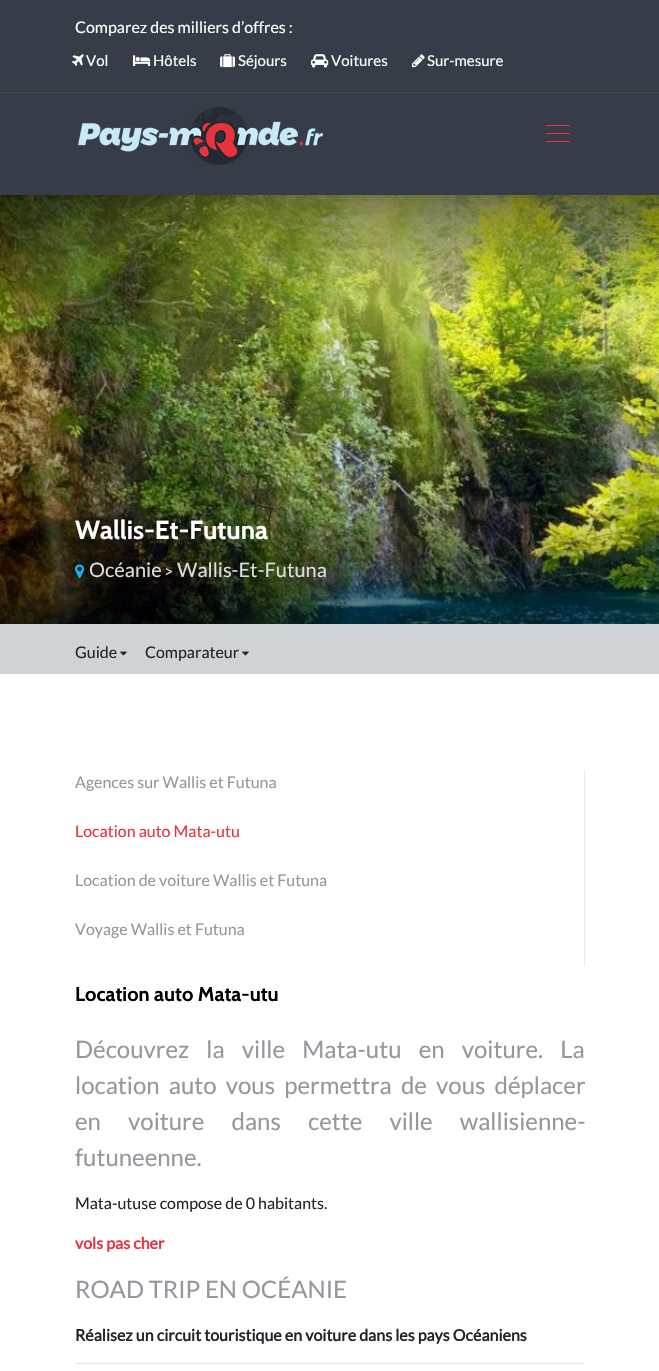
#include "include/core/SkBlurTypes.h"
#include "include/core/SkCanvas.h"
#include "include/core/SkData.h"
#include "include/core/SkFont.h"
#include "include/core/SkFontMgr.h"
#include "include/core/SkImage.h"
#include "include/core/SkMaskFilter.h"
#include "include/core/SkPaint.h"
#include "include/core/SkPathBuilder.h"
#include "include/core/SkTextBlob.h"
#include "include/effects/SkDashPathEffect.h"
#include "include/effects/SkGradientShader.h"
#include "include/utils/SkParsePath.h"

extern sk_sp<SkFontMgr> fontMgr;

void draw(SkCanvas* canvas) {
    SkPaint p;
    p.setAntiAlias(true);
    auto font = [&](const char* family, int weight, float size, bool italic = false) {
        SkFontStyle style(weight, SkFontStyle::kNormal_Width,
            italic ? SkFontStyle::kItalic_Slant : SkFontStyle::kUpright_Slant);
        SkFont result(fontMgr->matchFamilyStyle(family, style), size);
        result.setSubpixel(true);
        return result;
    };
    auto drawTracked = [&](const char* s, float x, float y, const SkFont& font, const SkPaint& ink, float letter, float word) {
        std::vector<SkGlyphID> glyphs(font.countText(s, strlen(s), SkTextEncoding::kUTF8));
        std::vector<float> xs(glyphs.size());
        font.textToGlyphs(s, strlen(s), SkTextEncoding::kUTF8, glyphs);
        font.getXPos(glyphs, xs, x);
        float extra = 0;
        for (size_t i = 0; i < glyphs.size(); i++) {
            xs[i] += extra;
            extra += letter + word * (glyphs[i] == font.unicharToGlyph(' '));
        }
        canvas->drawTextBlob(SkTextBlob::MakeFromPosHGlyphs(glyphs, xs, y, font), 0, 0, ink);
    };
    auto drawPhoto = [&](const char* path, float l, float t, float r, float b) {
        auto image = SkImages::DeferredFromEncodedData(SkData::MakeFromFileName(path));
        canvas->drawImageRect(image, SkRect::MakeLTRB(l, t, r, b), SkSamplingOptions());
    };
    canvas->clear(0xFFFFFFFF);
    drawPhoto("media/7.png", 0, 195, 659, 624);
    p.setColor(0x1A000000);
    p.setMaskFilter(SkMaskFilter::MakeBlur(kNormal_SkBlurStyle, 6.5f));
    canvas->drawRect(SkRect::MakeLTRB(0, 2, 659, 197), p);
    p.setMaskFilter(nullptr);
    p.setColor(0xFF363C48);
    canvas->drawRect(SkRect::MakeLTRB(0, 0, 659, 195), p);
    auto font1 = font("Lato", 400, 16);
    p.setColor(0xFFFFFFFF);
    canvas->drawString("Comparez des milliers d’offres :", 75, 33, font1, p);
    drawPhoto("media/1.png", 72, 54, 84, 66);
    auto font2 = font("Lato", 400, 15);
    canvas->drawString("Vol", 86, 66, font2, p);
    drawPhoto("media/2.png", 133, 55, 151, 66);
    canvas->drawString("Hôtels", 153, 66, font2, p);
    drawPhoto("media/3.png", 220, 54, 235, 68);
    canvas->drawString("Séjours", 238, 66, font2, p);
    drawPhoto("media/4.png", 311, 54, 329, 68);
    canvas->drawString("Voitures", 331, 66, font2, p);
    drawPhoto("media/5.png", 412, 54, 425, 68);
    canvas->drawString("Sur-mesure", 427, 66, font2, p);
    p.setColor(0xFF4A4A4A);
    canvas->drawRect(SkRect::MakeLTRB(0, 92, 659, 93), p);
    drawPhoto("media/6.png", 78, 107, 323, 165);
    {
        const struct { float l, t, r, b; SkColor color; } items[] = {
            {546, 125, 570, 126, 0xFFE7323F},
            {546, 133, 570, 134, 0xFFE7323F},
            {546, 141, 570, 142, 0xFFE7323F},
        };
        for (auto [l, t, r, b, color] : items) {
            p.setColor(color);
            canvas->drawRect(SkRect::MakeLTRB(l, t, r, b), p);
        }
    }
    auto font3 = font("Cabin", 700, 26);
    p.setColor(0xFFFFFFFF);
    canvas->drawString("Wallis-Et-Futuna", 75, 539, font3, p);
    drawPhoto("media/8.png", 75, 564, 85, 579);
    auto font4 = font("Lato", 400, 20);
    p.setColor(0xFFDDDDDD);
    canvas->drawString("Océanie", 89, 577, font4, p);
    canvas->drawString(">", 164, 577, font1, p);
    canvas->drawString("Wallis-Et-Futuna", 177, 577, font4, p);
    p.setColor(0xFFD1D2D3);
    canvas->drawRect(SkRect::MakeLTRB(0, 624, 659, 674), p);
    p.setColor(0xFF212529);
    canvas->drawString("Guide", 75, 658, font1, p);
    drawPhoto("media/9.png", 120, 651, 127, 656);
    canvas->drawString("Comparateur", 145, 658, font1, p);
    drawPhoto("media/9.png", 242, 651, 249, 656);
    p.setColor(0xFFE9EAEB);
    canvas->drawRect(SkRect::MakeLTRB(584, 770, 585, 966), p);
    p.setColor(0xFF95979C);
    canvas->drawString("Agences sur Wallis et Futuna", 75, 788, font1, p);
    p.setColor(0xFFE7323F);
    canvas->drawString("Location auto Mata-utu", 75, 837, font1, p);
    p.setColor(0xFF95979C);
    canvas->drawString("Location de voiture Wallis et Futuna", 75, 886, font1, p);
    canvas->drawString("Voyage Wallis et Futuna", 75, 935, font1, p);
    auto font5 = font("Cabin", 700, 20);
    p.setColor(0xFF000000);
    canvas->drawString("Location auto Mata-utu", 75, 1001, font5, p);
    auto font6 = font("Lato", 400, 24);
    p.setColor(0xFF95979C);
    drawTracked("Découvrez la ville Mata-utu en voiture. La", 75, 1058, font6, p, 0, 12.5f);
    drawTracked("location auto vous permettra de vous déplacer", 75, 1094, font6, p, 0, 4.5f);
    drawTracked("en voiture dans cette ville wallisienne-", 75, 1130, font6, p, 0, 22.5f);
    canvas->drawString("futuneenne.", 75, 1166, font6, p);
    p.setColor(0xFF212529);
    canvas->drawString("Mata-utuse compose de 0 habitants.", 75, 1209, font1, p);
    auto font7 = font("Lato", 700, 16);
    p.setColor(0xFFE7323F);
    canvas->drawString("vols pas cher", 75, 1249, font7, p);
    p.setColor(0xFF95979C);
    canvas->drawString("ROAD TRIP EN OCÉANIE", 75, 1298, font6, p);
    p.setColor(0xFF212529);
    canvas->drawString("Réalisez un circuit touristique en voiture dans les pays Océaniens", 75, 1341, font7, p);
    p.setColor(0xFFE6E6E6);
    canvas->drawRect(SkRect::MakeLTRB(75, 1363, 585, 1364), p);
}
